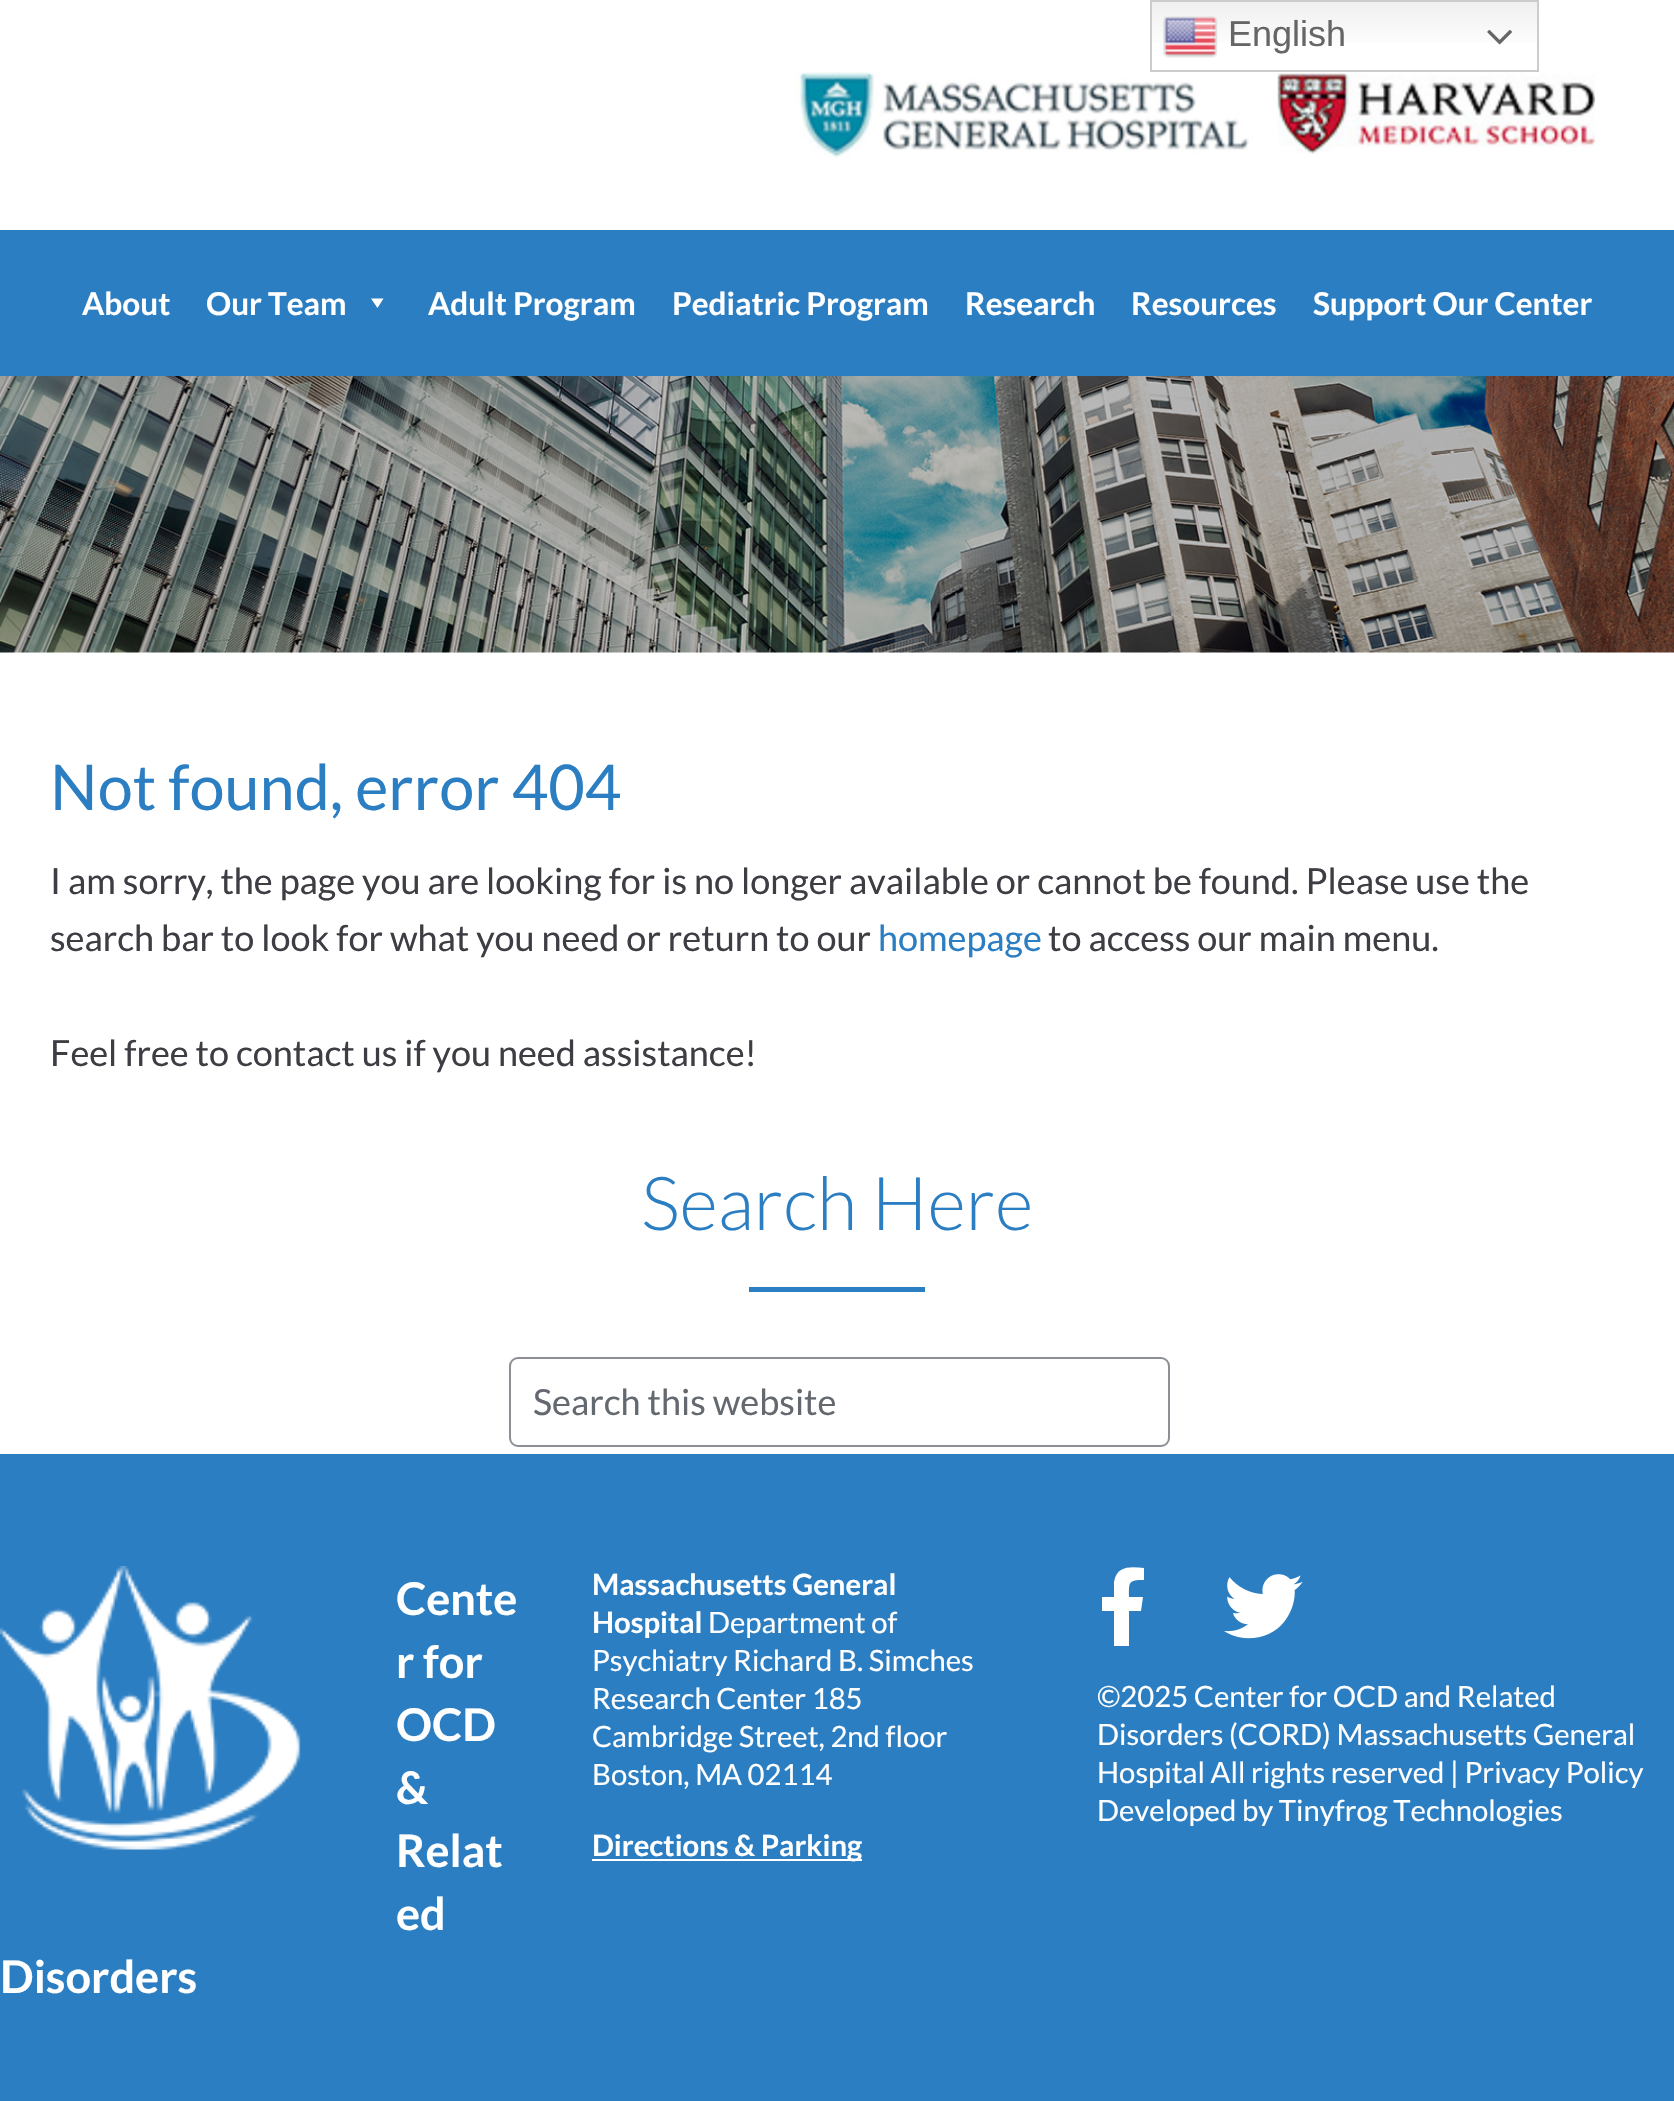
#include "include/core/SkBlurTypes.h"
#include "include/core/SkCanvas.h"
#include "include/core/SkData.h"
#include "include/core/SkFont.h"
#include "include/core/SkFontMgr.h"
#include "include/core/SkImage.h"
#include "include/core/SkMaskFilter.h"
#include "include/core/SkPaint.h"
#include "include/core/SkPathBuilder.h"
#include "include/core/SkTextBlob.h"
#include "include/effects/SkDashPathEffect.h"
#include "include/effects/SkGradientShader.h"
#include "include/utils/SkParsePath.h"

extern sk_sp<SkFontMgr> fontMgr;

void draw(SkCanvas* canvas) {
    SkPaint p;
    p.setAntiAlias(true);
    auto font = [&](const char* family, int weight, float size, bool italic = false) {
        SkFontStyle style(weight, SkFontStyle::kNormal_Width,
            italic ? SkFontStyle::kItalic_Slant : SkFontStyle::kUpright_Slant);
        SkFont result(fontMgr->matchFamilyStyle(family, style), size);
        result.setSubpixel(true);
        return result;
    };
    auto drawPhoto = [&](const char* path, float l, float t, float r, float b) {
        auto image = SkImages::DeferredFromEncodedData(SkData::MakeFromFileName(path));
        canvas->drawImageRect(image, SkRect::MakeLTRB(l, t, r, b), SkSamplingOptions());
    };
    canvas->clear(0xFFFFFFFF);
    {
        const SkColor colors[] = {0xFFEFEFEF, 0xFFFFFFFF};
        const float stops[] = {0, 0.7f};
        const SkPoint ends[] = {{1344, 0}, {1344, 72}};
        p.setShader(SkGradientShader::MakeLinear(ends, colors, stops, 2, SkTileMode::kClamp));
        p.setAlpha(255);
    }
    canvas->drawRect(SkRect::MakeLTRB(1152, 2, 1537, 43), p);
    p.setStyle(SkPaint::kStroke_Style);
    p.setStrokeWidth(2);
    p.setShader(nullptr);
    p.setColor(0xFFCCCCCC);
    canvas->drawRect(SkRect::MakeLTRB(1151, 1, 1538, 71), p);
    drawPhoto("media/1.png", 1163, 16, 1218, 58);
    auto font1 = font("Liberation Sans", 400, 36);
    p.setStyle(SkPaint::kFill_Style);
    p.setColor(0xFF666666);
    canvas->drawString("English", 1228, 46, font1, p);
    drawPhoto("media/2.png", 1487, 30, 1512, 45);
    drawPhoto("media/3.png", 794, 72, 1249, 158);
    drawPhoto("media/4.png", 1277, 73, 1595, 154);
    p.setColor(0xFF2B7EC2);
    canvas->drawRect(SkRect::MakeLTRB(0, 230, 1674, 376), p);
    auto font2 = font("Lato", 700, 31.5f);
    p.setColor(0xFFFFFFFF);
    canvas->drawString("About", 82, 315, font2, p);
    canvas->drawString("Our Team", 206, 315, font2, p);
    canvas->drawPath(SkPathBuilder().moveTo(383.5f, 298.5f).lineTo(377.5f, 308).lineTo(371, 298.5f).close().detach(), p);
    {
        const struct { const char* s; float x, y; } items[] = {
            {"Adult Program", 428, 315},
            {"Pediatric Program", 672, 315},
            {"Research", 965, 315},
            {"Resources", 1131, 315},
            {"Support Our Center", 1313, 315},
        };
        for (auto [s, x, y] : items) {
            canvas->drawString(s, x, y, font2, p);
        }
    }
    drawPhoto("media/5.png", 0, 376, 1674, 653);
    auto font3 = font("Lato", 400, 63);
    p.setColor(0xFF2B7EC2);
    canvas->drawString("Not found, error 404", 50, 810, font3, p);
    auto font4 = font("Lato", 400, 36);
    p.setColor(0xFF3E3D44);
    canvas->drawString("I am sorry, the page you are looking for is no longer available or cannot be found. Please use the", 50, 894, font4, p);
    canvas->drawString("search bar to look for what you need or return to our", 50, 951, font4, p);
    p.setColor(0xFF2B7EC2);
    canvas->drawString("homepage", 878, 951, font4, p);
    p.setColor(0xFF3E3D44);
    canvas->drawString("to access our main menu.", 1048, 951, font4, p);
    canvas->drawString("Feel free to contact us if you need assistance!", 50, 1066, font4, p);
    auto font5 = font("Lato", 300, 74.25f);
    p.setColor(0xFF2B7EC2);
    canvas->drawString("Search Here", 641, 1230, font5, p);
    canvas->drawRect(SkRect::MakeLTRB(749, 1287, 925, 1292), p);
    p.setStyle(SkPaint::kStroke_Style);
    p.setColor(0xFF8C8F94);
    canvas->drawRoundRect(SkRect::MakeLTRB(510, 1358, 1169, 1446), 8, 8, p);
    p.setStyle(SkPaint::kFill_Style);
    p.setColor(0xFF646970);
    canvas->drawString("Search this website", 533, 1415, font4, p);
    p.setColor(0xFF2B7EC2);
    canvas->drawRect(SkRect::MakeLTRB(0, 1454, 1674, 2101), p);
    drawPhoto("media/6.png", 0, 1566, 301, 1850);
    auto font6 = font("Lato", 700, 45);
    p.setColor(0xFFFFFFFF);
    {
        const struct { const char* s; float x, y; } items[] = {
            {"Cente", 396, 1615},
            {"r for", 396, 1678},
            {"OCD", 396, 1741},
            {"&", 396, 1804},
            {"Relat", 396, 1867},
            {"ed", 396, 1930},
            {"Disorders", 0, 1993},
        };
        for (auto [s, x, y] : items) {
            canvas->drawString(s, x, y, font6, p);
        }
    }
    auto font7 = font("Lato", 700, 29.25f);
    canvas->drawString("Massachusetts General", 592, 1595, font7, p);
    canvas->drawString("Hospital", 592, 1633, font7, p);
    auto font8 = font("Lato", 400, 29.25f);
    {
        const struct { const char* s; float x, y; } items[] = {
            {"Department of", 708, 1633},
            {"Psychiatry Richard B. Simches", 592, 1671},
            {"Research Center 185", 592, 1709},
            {"Cambridge Street, 2nd floor", 592, 1747},
            {"Boston, MA 02114", 592, 1785},
        };
        for (auto [s, x, y] : items) {
            canvas->drawString(s, x, y, font8, p);
        }
    }
    canvas->drawRect(SkRect::MakeLTRB(592, 1859, 862, 1861), p);
    canvas->drawString("Directions & Parking", 592, 1856, font7, p);
    canvas->drawPath(SkPathBuilder().moveTo(1141, 1611).lineTo(1129, 1611).lineTo(1129, 1646).lineTo(1114, 1646).lineTo(1114, 1611).lineTo(1102, 1611).lineTo(1102, 1597).lineTo(1114, 1597).lineTo(1114, 1582).cubicTo(1117, 1565, 1131, 1567, 1144, 1568).lineTo(1144, 1580).cubicTo(1128, 1580, 1129, 1582, 1129, 1597).lineTo(1143, 1597).close().detach(), p);
    drawPhoto("media/7.png", 1224, 1574, 1303, 1639);
    {
        const struct { const char* s; float x, y; } items[] = {
            {"©2025 Center for OCD and Related", 1097, 1707},
            {"Disorders (CORD) Massachusetts General", 1097, 1745},
            {"Hospital All rights reserved | Privacy Policy", 1097, 1783},
            {"Developed by Tinyfrog Technologies", 1097, 1821},
        };
        for (auto [s, x, y] : items) {
            canvas->drawString(s, x, y, font8, p);
        }
    }
}
